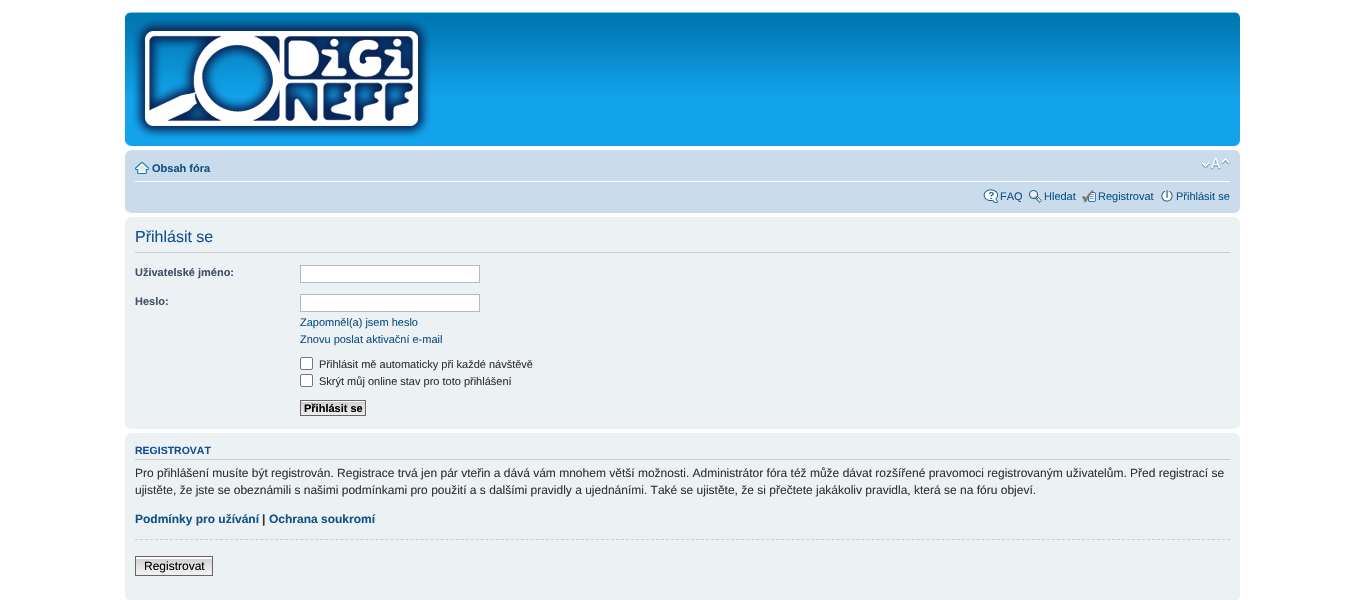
#include "include/core/SkBlurTypes.h"
#include "include/core/SkCanvas.h"
#include "include/core/SkData.h"
#include "include/core/SkFont.h"
#include "include/core/SkFontMgr.h"
#include "include/core/SkImage.h"
#include "include/core/SkMaskFilter.h"
#include "include/core/SkPaint.h"
#include "include/core/SkPathBuilder.h"
#include "include/core/SkTextBlob.h"
#include "include/effects/SkDashPathEffect.h"
#include "include/effects/SkGradientShader.h"
#include "include/utils/SkParsePath.h"

extern sk_sp<SkFontMgr> fontMgr;

void draw(SkCanvas* canvas) {
    SkPaint p;
    p.setAntiAlias(true);
    auto font = [&](const char* family, int weight, float size, bool italic = false) {
        SkFontStyle style(weight, SkFontStyle::kNormal_Width,
            italic ? SkFontStyle::kItalic_Slant : SkFontStyle::kUpright_Slant);
        SkFont result(fontMgr->matchFamilyStyle(family, style), size);
        result.setSubpixel(true);
        return result;
    };
    auto drawPhoto = [&](const char* path, float l, float t, float r, float b) {
        auto image = SkImages::DeferredFromEncodedData(SkData::MakeFromFileName(path));
        canvas->drawImageRect(image, SkRect::MakeLTRB(l, t, r, b), SkSamplingOptions());
    };
    canvas->clear(0xFFFFFFFF);
    p.setColor(0xFF12A3EB);
    canvas->drawRect(SkRect::MakeLTRB(125, 94, 1240, 146), p);
    drawPhoto("media/1.png", 125, 12, 1240, 94);
    drawPhoto("media/2.png", 125, 12, 131, 17);
    drawPhoto("media/3.png", 1235, 12, 1240, 17);
    drawPhoto("media/4.png", 133, 20, 431, 139);
    drawPhoto("media/5.png", 125, 141, 131, 146);
    drawPhoto("media/6.png", 1235, 141, 1240, 146);
    p.setColor(0xFFCADCEB);
    canvas->drawRect(SkRect::MakeLTRB(125, 150, 1240, 213), p);
    drawPhoto("media/7.png", 125, 150, 131, 155);
    drawPhoto("media/8.png", 1235, 150, 1240, 155);
    p.setColor(0xFFFFFFFF);
    canvas->drawRect(SkRect::MakeLTRB(135, 181, 1230, 182), p);
    drawPhoto("media/9.png", 135, 162, 149, 174);
    auto font1 = font("Liberation Sans", 700, 11);
    p.setColor(0xFF105289);
    canvas->drawString("Obsah fóra", 152, 172, font1, p);
    drawPhoto("media/10.png", 1201, 158, 1230, 170);
    drawPhoto("media/11.png", 983, 189, 999, 203);
    auto font2 = font("Liberation Sans", 400, 11);
    canvas->drawString("FAQ", 1000, 200, font2, p);
    drawPhoto("media/12.png", 1029, 190, 1042, 203);
    canvas->drawString("Hledat", 1044, 200, font2, p);
    drawPhoto("media/13.png", 1082, 190, 1096, 203);
    canvas->drawString("Registrovat", 1098, 200, font2, p);
    drawPhoto("media/14.png", 1161, 190, 1173, 202);
    canvas->drawString("Přihlásit se", 1176, 200, font2, p);
    drawPhoto("media/15.png", 125, 208, 131, 213);
    drawPhoto("media/16.png", 1235, 208, 1240, 213);
    p.setColor(0xFFECF1F3);
    canvas->drawRect(SkRect::MakeLTRB(125, 217, 1240, 429), p);
    drawPhoto("media/17.png", 125, 217, 130, 222);
    drawPhoto("media/18.png", 1235, 217, 1240, 222);
    p.setColor(0xFFCCCCCC);
    canvas->drawRect(SkRect::MakeLTRB(135, 252, 1230, 253), p);
    auto font3 = font("Liberation Sans", 400, 16);
    p.setColor(0xFF115098);
    canvas->drawString("Přihlásit se", 135, 242, font3, p);
    p.setColor(0xFF425067);
    canvas->drawString("Uživatelské jméno:", 135, 276, font1, p);
    p.setColor(0xFFFFFFFF);
    canvas->drawRect(SkRect::MakeLTRB(300.5f, 265.5f, 479.5f, 282.5f), p);
    p.setStyle(SkPaint::kStroke_Style);
    p.setStrokeWidth(1);
    p.setColor(0xFFB4BAC0);
    canvas->drawRect(SkRect::MakeLTRB(300.5f, 265.5f, 479.5f, 282.5f), p);
    p.setStyle(SkPaint::kFill_Style);
    p.setColor(0xFF425067);
    canvas->drawString("Heslo:", 135, 305, font1, p);
    p.setColor(0xFFFFFFFF);
    canvas->drawRect(SkRect::MakeLTRB(300.5f, 294.5f, 479.5f, 311.5f), p);
    p.setStyle(SkPaint::kStroke_Style);
    p.setColor(0xFFB4BAC0);
    canvas->drawRect(SkRect::MakeLTRB(300.5f, 294.5f, 479.5f, 311.5f), p);
    p.setStyle(SkPaint::kFill_Style);
    p.setColor(0xFF105289);
    canvas->drawString("Zapomněl(a) jsem heslo", 300, 326, font2, p);
    canvas->drawString("Znovu poslat aktivační e-mail", 300, 343, font2, p);
    p.setColor(0xFFFFFFFF);
    canvas->drawRoundRect(SkRect::MakeLTRB(300.5f, 357.5f, 312.5f, 369.5f), 1.5f, 1.5f, p);
    p.setStyle(SkPaint::kStroke_Style);
    p.setColor(0xFF767676);
    canvas->drawRoundRect(SkRect::MakeLTRB(300.5f, 357.5f, 312.5f, 369.5f), 1.5f, 1.5f, p);
    p.setStyle(SkPaint::kFill_Style);
    p.setColor(0xFF333333);
    canvas->drawString("Přihlásit mě automaticky při každé návštěvě", 319, 368, font2, p);
    p.setColor(0xFFFFFFFF);
    canvas->drawRoundRect(SkRect::MakeLTRB(300.5f, 374.5f, 312.5f, 386.5f), 1.5f, 1.5f, p);
    p.setStyle(SkPaint::kStroke_Style);
    p.setColor(0xFF767676);
    canvas->drawRoundRect(SkRect::MakeLTRB(300.5f, 374.5f, 312.5f, 386.5f), 1.5f, 1.5f, p);
    p.setStyle(SkPaint::kFill_Style);
    p.setColor(0xFF333333);
    canvas->drawString("Skrýt můj online stav pro toto přihlášení", 319, 385, font2, p);
    drawPhoto("media/19.png", 301, 401, 365, 415);
    p.setStyle(SkPaint::kStroke_Style);
    p.setColor(0xFF666666);
    canvas->drawRect(SkRect::MakeLTRB(300.5f, 400.5f, 365.5f, 415.5f), p);
    p.setStyle(SkPaint::kFill_Style);
    p.setColor(0xFF000000);
    canvas->drawString("Přihlásit se", 304, 412, font1, p);
    drawPhoto("media/20.png", 125, 424, 130, 429);
    drawPhoto("media/21.png", 1235, 424, 1240, 429);
    p.setColor(0xFFECF1F3);
    canvas->drawRect(SkRect::MakeLTRB(125, 433, 1240, 600), p);
    drawPhoto("media/17.png", 125, 433, 130, 438);
    drawPhoto("media/18.png", 1235, 433, 1240, 438);
    p.setColor(0xFFCCCCCC);
    canvas->drawRect(SkRect::MakeLTRB(135, 459, 1230, 460), p);
    auto font4 = font("Liberation Sans", 700, 10.5f);
    p.setColor(0xFF115098);
    canvas->drawString("REGISTROVAT", 135, 454, font4, p);
    auto font5 = font("Liberation Sans", 400, 12);
    p.setColor(0xFF333333);
    canvas->drawString("Pro přihlášení musíte být registrován. Registrace trvá jen pár vteřin a dává vám mnohem větší možnosti. Administrátor fóra též může dávat rozšířené pravomoci registrovaným uživatelům. Před registrací se", 135, 477, font5, p);
    canvas->drawString("ujistěte, že jste se obeznámili s našimi podmínkami pro použití a s dalšími pravidly a ujednáními. Také se ujistěte, že si přečtete jakákoliv pravidla, která se na fóru objeví.", 135, 494, font5, p);
    auto font6 = font("Liberation Sans", 700, 12);
    p.setColor(0xFF105289);
    canvas->drawString("Podmínky pro užívání", 135, 523, font6, p);
    p.setColor(0xFF333333);
    canvas->drawString("|", 262, 523, font6, p);
    p.setColor(0xFF105289);
    canvas->drawString("Ochrana soukromí", 269, 523, font6, p);
    p.setStyle(SkPaint::kStroke_Style);
    p.setColor(0xFFCCCCCC);
    p.setPathEffect(SkDashPathEffect::Make({{3, 2.01f}}, 0));
    canvas->drawPath(SkPathBuilder().moveTo(135, 539.5f).lineTo(1230, 539.5f).detach(), p);
    p.setPathEffect(nullptr);
    drawPhoto("media/22.png", 136, 558, 212, 575);
    p.setStyle(SkPaint::kFill_Style);
    p.setColor(0xFFFAFAFA);
    canvas->drawRect(SkRect::MakeLTRB(136, 557, 212, 558), p);
    p.setStyle(SkPaint::kStroke_Style);
    p.setColor(0xFF666666);
    canvas->drawRect(SkRect::MakeLTRB(135.5f, 556.5f, 212.5f, 575.5f), p);
    p.setStyle(SkPaint::kFill_Style);
    p.setColor(0xFF000000);
    canvas->drawString("Registrovat", 144, 570, font5, p);
    drawPhoto("media/23.png", 125, 596, 128, 600);
    drawPhoto("media/24.png", 1238, 596, 1240, 600);
}
